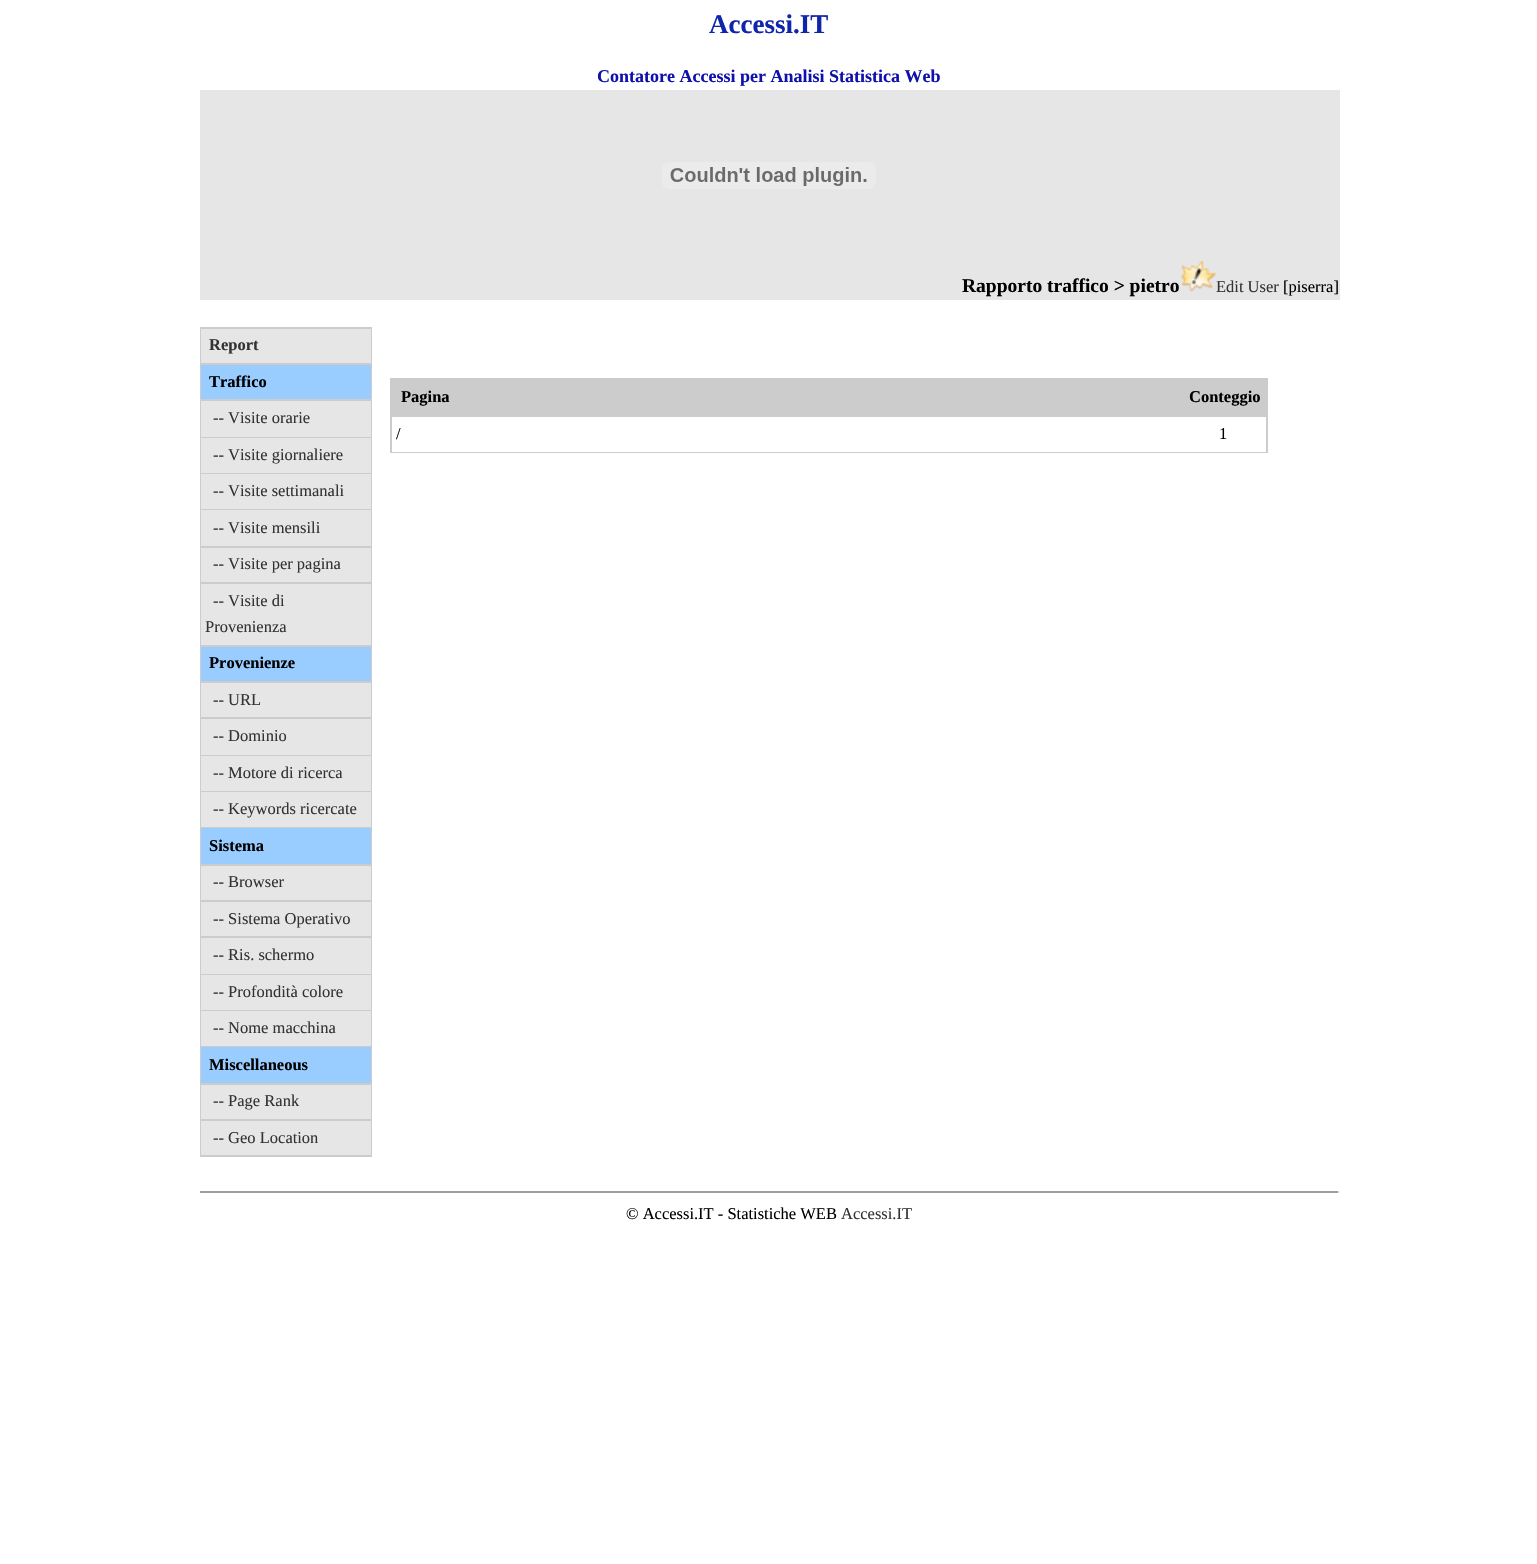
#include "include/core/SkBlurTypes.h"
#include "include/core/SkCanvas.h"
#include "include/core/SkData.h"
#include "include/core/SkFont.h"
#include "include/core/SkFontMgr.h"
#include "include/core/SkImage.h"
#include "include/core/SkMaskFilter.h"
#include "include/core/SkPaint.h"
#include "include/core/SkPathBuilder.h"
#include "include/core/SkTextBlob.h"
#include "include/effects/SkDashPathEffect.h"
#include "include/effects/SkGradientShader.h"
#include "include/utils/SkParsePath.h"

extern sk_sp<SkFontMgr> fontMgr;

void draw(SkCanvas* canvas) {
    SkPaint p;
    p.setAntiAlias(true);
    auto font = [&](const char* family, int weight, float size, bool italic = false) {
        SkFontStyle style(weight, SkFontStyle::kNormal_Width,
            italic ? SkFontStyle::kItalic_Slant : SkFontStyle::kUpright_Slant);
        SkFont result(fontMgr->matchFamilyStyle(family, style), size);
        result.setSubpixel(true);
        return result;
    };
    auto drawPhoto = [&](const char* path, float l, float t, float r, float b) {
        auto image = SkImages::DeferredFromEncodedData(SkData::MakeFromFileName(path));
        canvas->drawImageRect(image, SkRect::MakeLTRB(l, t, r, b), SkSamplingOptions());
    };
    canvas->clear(0xFFFFFFFF);
    auto font1 = font("Liberation Serif", 700, 27);
    p.setColor(0xFF0F25AB);
    canvas->drawString("Accessi.IT", 709, 33, font1, p);
    auto font2 = font("Liberation Serif", 700, 18);
    p.setColor(0xFF0F11AC);
    canvas->drawString("Contatore Accessi per Analisi Statistica Web", 597, 82, font2, p);
    p.setColor(0xFFE6E6E6);
    canvas->drawRect(SkRect::MakeLTRB(200, 90, 1340, 300), p);
    drawPhoto("media/1.png", 662, 162, 876, 189);
    auto font3 = font("Liberation Serif", 700, 19.5f);
    p.setColor(0xFF000000);
    canvas->drawString("Rapporto traffico > pietro", 962, 292, font3, p);
    drawPhoto("media/2.png", 1180, 261, 1217, 292);
    auto font4 = font("Liberation Serif", 400, 16.5f);
    p.setColor(0xFF333333);
    canvas->drawString("Edit User", 1216, 292, font4, p);
    p.setColor(0xFF000000);
    canvas->drawString("[piserra]", 1283, 292, font4, p);
    p.setColor(0xFFCCCCCC);
    canvas->drawRect(SkRect::MakeLTRB(200, 327, 372, 1157), p);
    p.setColor(0xFFE6E6E6);
    canvas->drawRect(SkRect::MakeLTRB(201, 329, 371, 363), p);
    auto font5 = font("Liberation Serif", 700, 16.5f);
    p.setColor(0xFF333333);
    canvas->drawString("Report", 209, 350, font5, p);
    p.setColor(0xFF99CCFF);
    canvas->drawRect(SkRect::MakeLTRB(201, 365, 371, 399), p);
    p.setColor(0xFF000000);
    canvas->drawString("Traffico", 209, 387, font5, p);
    p.setColor(0xFFE6E6E6);
    canvas->drawRect(SkRect::MakeLTRB(201, 401, 371, 437), p);
    p.setColor(0xFF333333);
    canvas->drawString("-- Visite orarie", 213, 423, font4, p);
    p.setColor(0xFFE6E6E6);
    canvas->drawRect(SkRect::MakeLTRB(201, 438, 371, 473), p);
    p.setColor(0xFF333333);
    canvas->drawString("-- Visite giornaliere", 213, 460, font4, p);
    p.setColor(0xFFE6E6E6);
    canvas->drawRect(SkRect::MakeLTRB(201, 474, 371, 509), p);
    p.setColor(0xFF333333);
    canvas->drawString("-- Visite settimanali", 213, 496, font4, p);
    p.setColor(0xFFE6E6E6);
    canvas->drawRect(SkRect::MakeLTRB(201, 510, 371, 546), p);
    p.setColor(0xFF333333);
    canvas->drawString("-- Visite mensili", 213, 533, font4, p);
    p.setColor(0xFFE6E6E6);
    canvas->drawRect(SkRect::MakeLTRB(201, 548, 371, 582), p);
    p.setColor(0xFF333333);
    canvas->drawString("-- Visite per pagina", 213, 569, font4, p);
    p.setColor(0xFFE6E6E6);
    canvas->drawRect(SkRect::MakeLTRB(201, 584, 371, 645), p);
    p.setColor(0xFF333333);
    canvas->drawString("-- Visite di", 213, 606, font4, p);
    canvas->drawString("Provenienza", 205, 632, font4, p);
    p.setColor(0xFF99CCFF);
    canvas->drawRect(SkRect::MakeLTRB(201, 647, 371, 681), p);
    p.setColor(0xFF000000);
    canvas->drawString("Provenienze", 209, 668, font5, p);
    p.setColor(0xFFE6E6E6);
    canvas->drawRect(SkRect::MakeLTRB(201, 683, 371, 717), p);
    p.setColor(0xFF333333);
    canvas->drawString("-- URL", 213, 705, font4, p);
    p.setColor(0xFFE6E6E6);
    canvas->drawRect(SkRect::MakeLTRB(201, 719, 371, 755), p);
    p.setColor(0xFF333333);
    canvas->drawString("-- Dominio", 213, 741, font4, p);
    p.setColor(0xFFE6E6E6);
    canvas->drawRect(SkRect::MakeLTRB(201, 756, 371, 791), p);
    p.setColor(0xFF333333);
    canvas->drawString("-- Motore di ricerca", 213, 778, font4, p);
    p.setColor(0xFFE6E6E6);
    canvas->drawRect(SkRect::MakeLTRB(201, 792, 371, 827), p);
    p.setColor(0xFF333333);
    canvas->drawString("-- Keywords ricercate", 213, 814, font4, p);
    p.setColor(0xFF99CCFF);
    canvas->drawRect(SkRect::MakeLTRB(201, 828, 371, 864), p);
    p.setColor(0xFF000000);
    canvas->drawString("Sistema", 209, 851, font5, p);
    p.setColor(0xFFE6E6E6);
    canvas->drawRect(SkRect::MakeLTRB(201, 866, 371, 900), p);
    p.setColor(0xFF333333);
    canvas->drawString("-- Browser", 213, 887, font4, p);
    p.setColor(0xFFE6E6E6);
    canvas->drawRect(SkRect::MakeLTRB(201, 902, 371, 936), p);
    p.setColor(0xFF333333);
    canvas->drawString("-- Sistema Operativo", 213, 924, font4, p);
    p.setColor(0xFFE6E6E6);
    canvas->drawRect(SkRect::MakeLTRB(201, 938, 371, 974), p);
    p.setColor(0xFF333333);
    canvas->drawString("-- Ris. schermo", 213, 960, font4, p);
    p.setColor(0xFFE6E6E6);
    canvas->drawRect(SkRect::MakeLTRB(201, 975, 371, 1010), p);
    p.setColor(0xFF333333);
    canvas->drawString("-- Profondità colore", 213, 997, font4, p);
    p.setColor(0xFFE6E6E6);
    canvas->drawRect(SkRect::MakeLTRB(201, 1011, 371, 1046), p);
    p.setColor(0xFF333333);
    canvas->drawString("-- Nome macchina", 213, 1033, font4, p);
    p.setColor(0xFF99CCFF);
    canvas->drawRect(SkRect::MakeLTRB(201, 1047, 371, 1083), p);
    p.setColor(0xFF000000);
    canvas->drawString("Miscellaneous", 209, 1070, font5, p);
    p.setColor(0xFFE6E6E6);
    canvas->drawRect(SkRect::MakeLTRB(201, 1085, 371, 1119), p);
    p.setColor(0xFF333333);
    canvas->drawString("-- Page Rank", 213, 1106, font4, p);
    p.setColor(0xFFE6E6E6);
    canvas->drawRect(SkRect::MakeLTRB(201, 1121, 371, 1155), p);
    p.setColor(0xFF333333);
    canvas->drawString("-- Geo Location", 213, 1143, font4, p);
    p.setColor(0xFFCCCCCC);
    canvas->drawRect(SkRect::MakeLTRB(390, 378, 1268, 453), p);
    p.setColor(0xFF000000);
    canvas->drawString("Pagina", 401, 402, font5, p);
    canvas->drawString("Conteggio", 1189, 402, font5, p);
    p.setColor(0xFFFFFFFF);
    canvas->drawRect(SkRect::MakeLTRB(392, 417, 1266, 452), p);
    p.setColor(0xFF000000);
    canvas->drawString("/", 396, 439, font4, p);
    canvas->drawString("1", 1219, 439, font4, p);
    p.setColor(0xFF9F9F9F);
    canvas->drawRect(SkRect::MakeLTRB(200, 1191, 1340, 1193), p);
    p.setColor(0xFFEEEEEE);
    canvas->drawRect(SkRect::MakeLTRB(1338, 1191, 1340, 1193), p);
    p.setColor(0xFF000000);
    canvas->drawString("© Accessi.IT - Statistiche WEB", 626, 1219, font4, p);
    p.setColor(0xFF333333);
    canvas->drawString("Accessi.IT", 841, 1219, font4, p);
}
